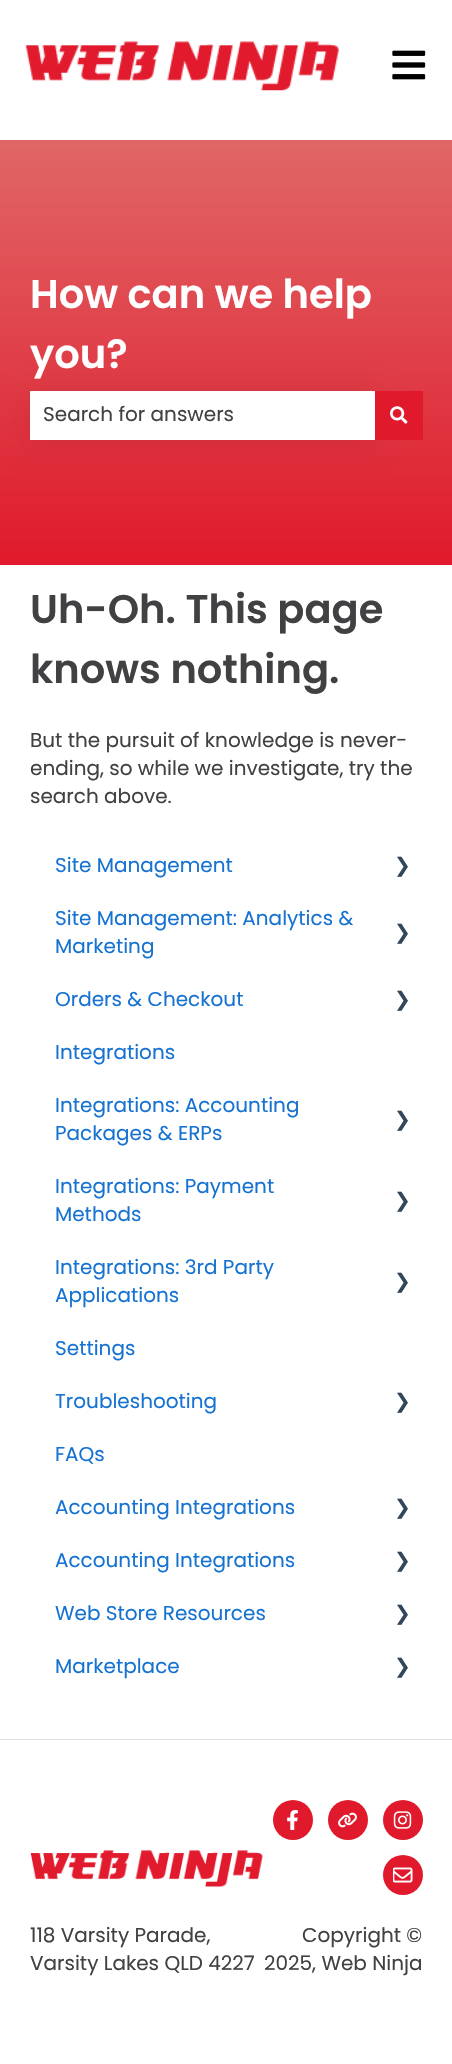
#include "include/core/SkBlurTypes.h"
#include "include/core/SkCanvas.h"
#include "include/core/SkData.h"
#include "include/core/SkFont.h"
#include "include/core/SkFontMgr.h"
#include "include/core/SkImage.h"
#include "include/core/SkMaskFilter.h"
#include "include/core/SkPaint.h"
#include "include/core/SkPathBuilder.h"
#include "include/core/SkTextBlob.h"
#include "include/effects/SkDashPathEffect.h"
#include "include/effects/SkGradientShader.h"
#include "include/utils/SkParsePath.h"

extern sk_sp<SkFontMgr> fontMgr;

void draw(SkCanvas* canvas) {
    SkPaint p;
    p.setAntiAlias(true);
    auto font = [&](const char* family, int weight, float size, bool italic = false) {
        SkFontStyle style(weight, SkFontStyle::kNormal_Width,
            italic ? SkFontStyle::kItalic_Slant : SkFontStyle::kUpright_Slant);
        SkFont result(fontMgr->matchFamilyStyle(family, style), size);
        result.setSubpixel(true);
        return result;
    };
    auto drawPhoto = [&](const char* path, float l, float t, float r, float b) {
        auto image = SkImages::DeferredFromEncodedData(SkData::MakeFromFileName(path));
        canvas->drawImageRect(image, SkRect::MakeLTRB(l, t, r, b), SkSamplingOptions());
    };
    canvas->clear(0xFFFFFFFF);
    drawPhoto("media/1.png", 25, 41, 339, 91);
    drawPhoto("media/2.png", 392, 50, 426, 80);
    {
        const SkColor colors[] = {0xFFE06666, 0xFFE01A2C};
        const float stops[] = {0, 1};
        const SkPoint ends[] = {{226, 140}, {226, 565}};
        p.setShader(SkGradientShader::MakeLinear(ends, colors, stops, 2, SkTileMode::kClamp));
        p.setAlpha(255);
    }
    canvas->drawRect(SkRect::MakeLTRB(0, 140, 452, 565), p);
    auto font1 = font("Poppins", 600, 40);
    p.setShader(nullptr);
    p.setColor(0xFFFFFFFF);
    canvas->drawString("How can we help", 30, 308, font1, p);
    canvas->drawString("you?", 30, 368, font1, p);
    p.setColor(0x14000000);
    p.setMaskFilter(SkMaskFilter::MakeBlur(kNormal_SkBlurStyle, 15));
    canvas->drawRect(SkRect::MakeLTRB(30, 393, 375, 441), p);
    p.setMaskFilter(nullptr);
    p.setColor(0xFFFFFFFF);
    canvas->drawRect(SkRect::MakeLTRB(30, 391, 375, 440), p);
    auto font2 = font("Poppins", 400, 20);
    p.setColor(0xFF414042);
    canvas->drawString("Search for answers", 43, 421, font2, p);
    p.setColor(0xFFE01A2C);
    canvas->drawRect(SkRect::MakeLTRB(375, 391, 423, 440), p);
    drawPhoto("media/3.png", 390, 406, 408, 424);
    p.setColor(0xFF414042);
    canvas->drawString("Uh-Oh. This page", 30, 623, font1, p);
    canvas->drawString("knows nothing.", 30, 683, font1, p);
    {
        const struct { const char* s; float x, y; } items[] = {
            {"But the pursuit of knowledge is never-", 30, 747},
            {"ending, so while we investigate, try the", 30, 775},
            {"search above.", 30, 803},
        };
        for (auto [s, x, y] : items) {
            canvas->drawString(s, x, y, font2, p);
        }
    }
    p.setColor(0xFF1773D1);
    canvas->drawString("Site Management", 55, 872, font2, p);
    auto font3 = font("DejaVu Sans", 400, 20);
    p.setColor(0xFF33475B);
    canvas->drawString("❯", 394, 872, font3, p);
    p.setColor(0xFF1773D1);
    canvas->drawString("Site Management: Analytics &", 55, 925, font2, p);
    canvas->drawString("Marketing", 55, 953, font2, p);
    p.setColor(0xFF33475B);
    canvas->drawString("❯", 394, 939, font3, p);
    p.setColor(0xFF1773D1);
    canvas->drawString("Orders & Checkout", 55, 1006, font2, p);
    p.setColor(0xFF33475B);
    canvas->drawString("❯", 394, 1006, font3, p);
    p.setColor(0xFF1773D1);
    {
        const struct { const char* s; float x, y; } items[] = {
            {"Integrations", 55, 1059},
            {"Integrations: Accounting", 55, 1112},
            {"Packages & ERPs", 55, 1140},
        };
        for (auto [s, x, y] : items) {
            canvas->drawString(s, x, y, font2, p);
        }
    }
    p.setColor(0xFF33475B);
    canvas->drawString("❯", 394, 1126, font3, p);
    p.setColor(0xFF1773D1);
    canvas->drawString("Integrations: Payment", 55, 1193, font2, p);
    canvas->drawString("Methods", 55, 1221, font2, p);
    p.setColor(0xFF33475B);
    canvas->drawString("❯", 394, 1207, font3, p);
    p.setColor(0xFF1773D1);
    canvas->drawString("Integrations: 3rd Party", 55, 1274, font2, p);
    canvas->drawString("Applications", 55, 1302, font2, p);
    p.setColor(0xFF33475B);
    canvas->drawString("❯", 394, 1288, font3, p);
    p.setColor(0xFF1773D1);
    canvas->drawString("Settings", 55, 1355, font2, p);
    canvas->drawString("Troubleshooting", 55, 1408, font2, p);
    p.setColor(0xFF33475B);
    canvas->drawString("❯", 394, 1408, font3, p);
    p.setColor(0xFF1773D1);
    canvas->drawString("FAQs", 55, 1461, font2, p);
    canvas->drawString("Accounting Integrations", 55, 1514, font2, p);
    p.setColor(0xFF33475B);
    canvas->drawString("❯", 394, 1514, font3, p);
    p.setColor(0xFF1773D1);
    canvas->drawString("Accounting Integrations", 55, 1567, font2, p);
    p.setColor(0xFF33475B);
    canvas->drawString("❯", 394, 1567, font3, p);
    p.setColor(0xFF1773D1);
    canvas->drawString("Web Store Resources", 55, 1620, font2, p);
    p.setColor(0xFF33475B);
    canvas->drawString("❯", 394, 1620, font3, p);
    p.setColor(0xFF1773D1);
    canvas->drawString("Marketplace", 55, 1673, font2, p);
    p.setColor(0xFF33475B);
    canvas->drawString("❯", 394, 1673, font3, p);
    p.setColor(0xFFE0E0E0);
    canvas->drawRect(SkRect::MakeLTRB(0, 1739, 452, 1740), p);
    drawPhoto("media/4.png", 30, 1850, 263, 1887);
    p.setColor(0xFF414042);
    canvas->drawString("118 Varsity Parade,", 30, 1942, font2, p);
    canvas->drawString("Varsity Lakes QLD 4227", 30, 1970, font2, p);
    p.setColor(0xFFE01A2C);
    canvas->drawCircle(293, 1820, 20, p);
    drawPhoto("media/5.png", 287, 1810, 298, 1830);
    canvas->drawCircle(348, 1820, 20, p);
    drawPhoto("media/6.png", 338, 1812, 357, 1828);
    canvas->drawCircle(403, 1820, 20, p);
    drawPhoto("media/7.png", 393, 1811, 412, 1829);
    canvas->drawCircle(403, 1875, 20, p);
    drawPhoto("media/8.png", 393, 1867, 413, 1883);
    p.setColor(0xFF414042);
    canvas->drawString("Copyright ©", 302, 1942, font2, p);
    canvas->drawString("2025, Web Ninja", 264, 1970, font2, p);
}
